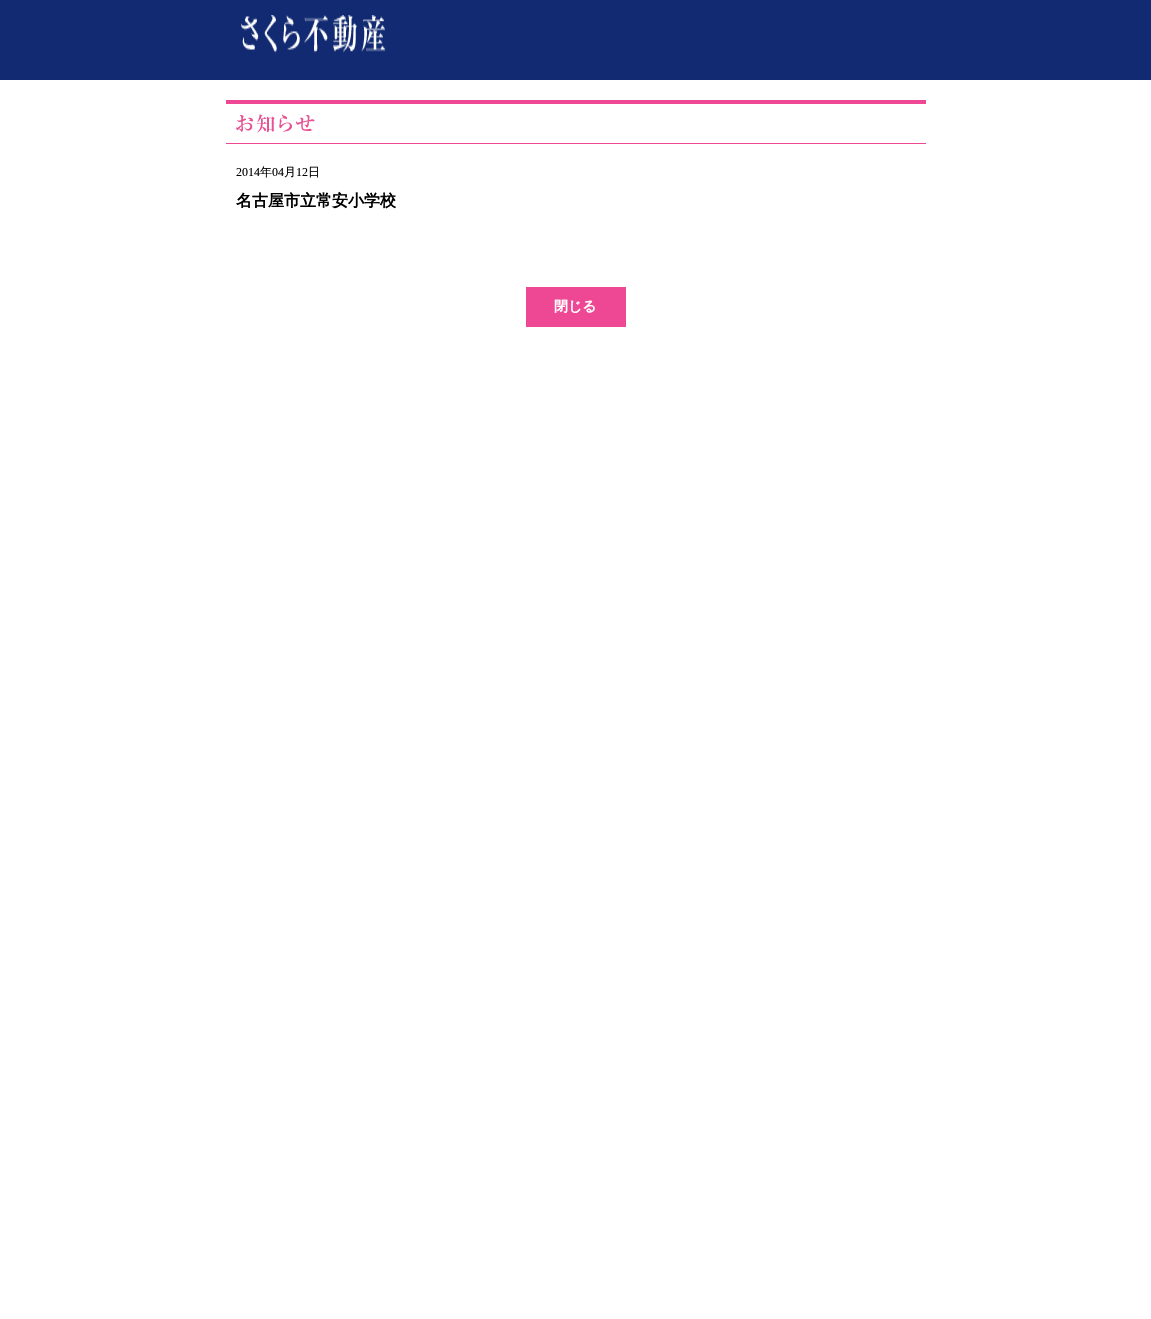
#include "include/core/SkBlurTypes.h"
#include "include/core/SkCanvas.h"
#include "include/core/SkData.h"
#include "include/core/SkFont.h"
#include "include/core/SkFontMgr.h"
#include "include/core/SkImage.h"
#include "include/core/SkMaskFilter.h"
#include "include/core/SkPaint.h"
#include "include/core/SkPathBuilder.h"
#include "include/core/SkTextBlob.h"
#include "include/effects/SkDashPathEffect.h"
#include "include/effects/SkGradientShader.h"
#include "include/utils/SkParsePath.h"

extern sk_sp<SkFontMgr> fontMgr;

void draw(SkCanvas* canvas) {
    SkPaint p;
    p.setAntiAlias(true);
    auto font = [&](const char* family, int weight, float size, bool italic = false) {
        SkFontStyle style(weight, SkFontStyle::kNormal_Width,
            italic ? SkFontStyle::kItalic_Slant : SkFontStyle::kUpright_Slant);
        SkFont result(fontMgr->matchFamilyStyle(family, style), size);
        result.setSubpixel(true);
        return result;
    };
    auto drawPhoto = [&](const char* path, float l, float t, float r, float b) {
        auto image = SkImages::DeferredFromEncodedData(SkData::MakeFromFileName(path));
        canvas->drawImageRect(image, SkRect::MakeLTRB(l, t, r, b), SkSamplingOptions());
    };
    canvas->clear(0xFFFFFFFF);
    p.setColor(0xFF122A71);
    canvas->drawRect(SkRect::MakeLTRB(0, 0, 1151, 80), p);
    drawPhoto("media/1.png", 241, 15, 386, 53);
    p.setColor(0xFFEE4793);
    canvas->drawRect(SkRect::MakeLTRB(226, 100, 926, 104), p);
    canvas->drawRect(SkRect::MakeLTRB(226, 143, 926, 144), p);
    drawPhoto("media/2.png", 236, 114, 315, 133);
    auto font1 = font("Liberation Serif", 400, 12);
    p.setColor(0xFF000000);
    canvas->drawString("2014", 236, 176, font1, p);
    auto font2 = font("WenQuanYi Zen Hei", 500, 12);
    canvas->drawString("年", 260, 176, font2, p);
    canvas->drawString("04", 272, 176, font1, p);
    canvas->drawString("月", 284, 176, font2, p);
    canvas->drawString("12", 296, 176, font1, p);
    canvas->drawString("日", 308, 176, font2, p);
    auto font3 = font("WenQuanYi Zen Hei", 700, 16);
    canvas->drawString("名古屋市立常安小学校", 236, 206, font3, p);
    p.setColor(0xFFEE4793);
    canvas->drawRect(SkRect::MakeLTRB(526, 287, 626, 327), p);
    auto font4 = font("WenQuanYi Zen Hei", 700, 14);
    p.setColor(0xFFFFFFFF);
    canvas->drawString("閉じる", 554, 311, font4, p);
}
